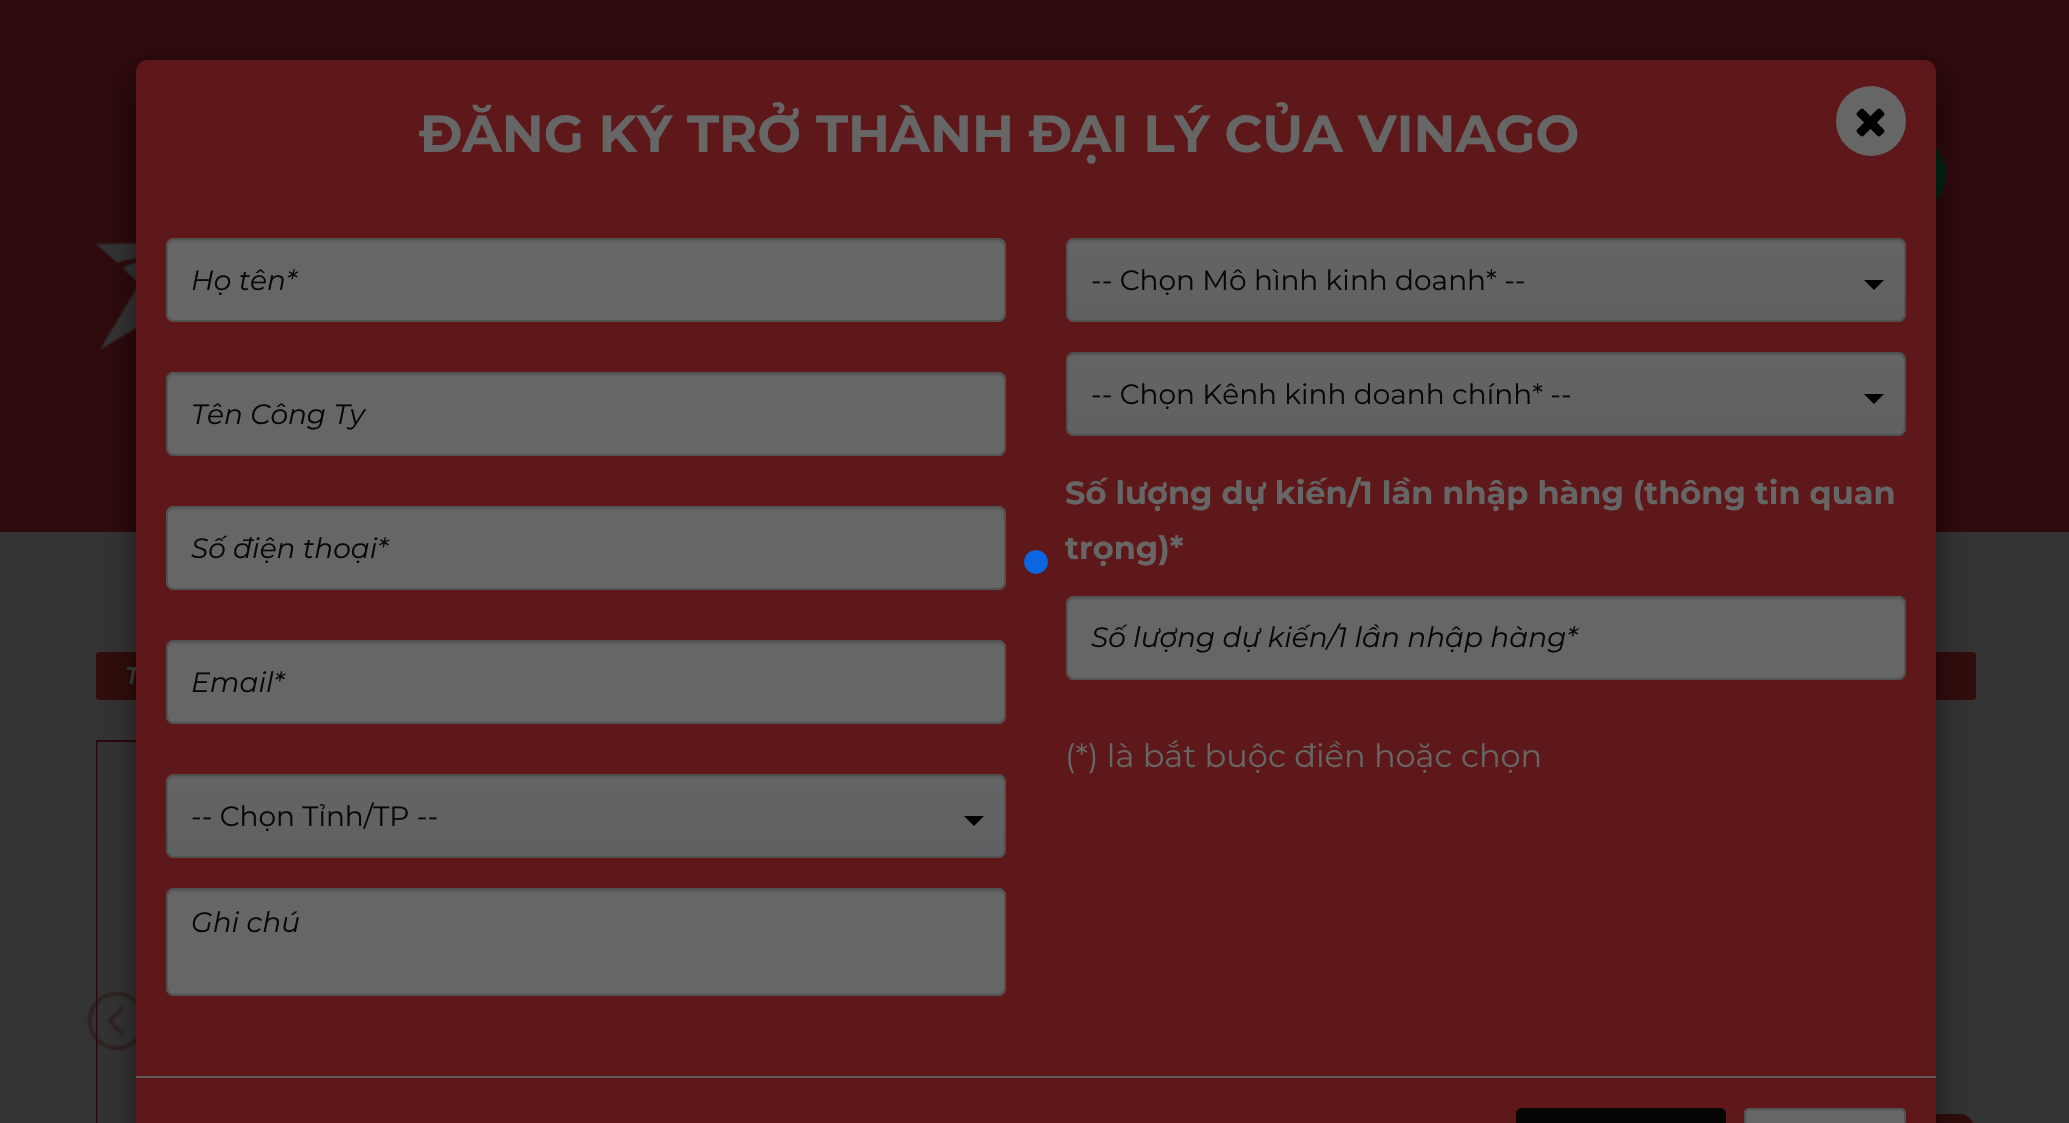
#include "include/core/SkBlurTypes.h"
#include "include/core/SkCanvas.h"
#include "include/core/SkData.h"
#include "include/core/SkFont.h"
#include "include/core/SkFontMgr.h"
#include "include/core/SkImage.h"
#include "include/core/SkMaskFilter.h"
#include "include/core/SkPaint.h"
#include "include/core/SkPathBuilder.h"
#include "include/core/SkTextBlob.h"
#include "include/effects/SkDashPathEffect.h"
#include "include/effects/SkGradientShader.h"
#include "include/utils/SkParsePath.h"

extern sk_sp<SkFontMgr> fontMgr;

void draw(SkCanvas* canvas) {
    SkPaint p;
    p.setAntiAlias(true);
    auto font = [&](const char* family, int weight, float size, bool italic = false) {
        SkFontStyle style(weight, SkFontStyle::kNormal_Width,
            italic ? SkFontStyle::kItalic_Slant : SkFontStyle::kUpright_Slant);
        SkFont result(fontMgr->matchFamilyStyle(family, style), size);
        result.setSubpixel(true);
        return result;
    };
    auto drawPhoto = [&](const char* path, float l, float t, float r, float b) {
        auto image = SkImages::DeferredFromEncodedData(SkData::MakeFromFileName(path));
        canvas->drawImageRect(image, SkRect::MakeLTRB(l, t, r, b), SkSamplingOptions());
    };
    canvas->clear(0xFF333333);
    p.setColor(0xFF2E0A0C);
    canvas->drawRect(SkRect::MakeLTRB(0, 0, 2069, 532), p);
    p.setColor(0xFF002313);
    canvas->drawPath(SkPathBuilder().moveTo(1766, 134).lineTo(1906, 134).cubicTo(1928, 134, 1946, 152, 1946, 174).cubicTo(1946, 196, 1928, 214, 1906, 214).lineTo(1766, 214).close().detach(), p);
    drawPhoto("media/1.png", 96, 242, 136, 350);
    p.setColor(0xFF300C0C);
    canvas->drawRoundRect(SkRect::MakeLTRB(96, 652, 1976, 700), 4, 4, p);
    p.setStyle(SkPaint::kStroke_Style);
    p.setStrokeWidth(2);
    p.setColor(0xFF2A060F);
    canvas->drawRect(SkRect::MakeLTRB(97, 741, 681, 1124), p);
    drawPhoto("media/3.png", 97, 742, 136, 1123);
    drawPhoto("media/4.png", 86, 991, 136, 1050);
    p.setStyle(SkPaint::kFill_Style);
    p.setColor(0xFF300C0C);
    canvas->drawRoundRect(SkRect::MakeLTRB(1388, 1114, 1974, 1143), 20, 20, p);
    p.setColor(0x80000000);
    p.setMaskFilter(SkMaskFilter::MakeBlur(kNormal_SkBlurStyle, 15));
    canvas->drawRoundRect(SkRect::MakeLTRB(136, 70, 1936, 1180), 12, 12, p);
    p.setMaskFilter(nullptr);
    p.setColor(0xFF5F181A);
    canvas->drawPath(SkPathBuilder().moveTo(148, 60).lineTo(1924, 60).cubicTo(1930.5f, 60, 1936, 65.5f, 1936, 72).lineTo(1936, 208).lineTo(136, 208).lineTo(136, 72).cubicTo(136, 65.5f, 141.5f, 60, 148, 60).close().detach(), p);
    auto font1 = font("Montserrat", 700, 52);
    p.setColor(0xFF666666);
    canvas->drawString("ĐĂNG KÝ TRỞ THÀNH ĐẠI LÝ CỦA VINAGO", 419, 152, font1, p);
    canvas->drawCircle(1871, 121, 35, p);
    drawPhoto("media/2.png", 1856, 108, 1885, 137);
    auto font2 = font("Montserrat", 600, 24, true);
    p.setColor(0xFF333333);
    canvas->drawString("T", 125, 684, font2, p);
    p.setColor(0xFF5F181A);
    canvas->drawRect(SkRect::MakeLTRB(136, 208, 1936, 1076), p);
    p.setColor(0xFF666666);
    canvas->drawRoundRect(SkRect::MakeLTRB(166, 238, 1006, 322), 8, 8, p);
    p.setColor(0xFF5E5E5E);
    canvas->drawPath(SkPathBuilder().moveTo(174, 242).lineTo(998, 242).cubicTo(1001, 242, 1004, 245, 1004, 248).cubicTo(1004, 244, 1003, 240, 998, 240).lineTo(174, 240).cubicTo(169, 240, 168, 244, 168, 248).cubicTo(168, 245, 171, 242, 174, 242).close().detach(), p);
    p.setStyle(SkPaint::kStroke_Style);
    p.setColor(0xFF525252);
    canvas->drawRoundRect(SkRect::MakeLTRB(167, 239, 1005, 321), 7, 7, p);
    auto font3 = font("Montserrat", 400, 28, true);
    p.setStyle(SkPaint::kFill_Style);
    p.setColor(0xFF070707);
    canvas->drawString("Họ tên*", 191, 290, font3, p);
    p.setColor(0xFF666666);
    canvas->drawRoundRect(SkRect::MakeLTRB(166, 372, 1006, 456), 8, 8, p);
    p.setColor(0xFF5E5E5E);
    canvas->drawPath(SkPathBuilder().moveTo(174, 376).lineTo(998, 376).cubicTo(1001, 376, 1004, 379, 1004, 382).cubicTo(1004, 378, 1003, 374, 998, 374).lineTo(174, 374).cubicTo(169, 374, 168, 378, 168, 382).cubicTo(168, 379, 171, 376, 174, 376).close().detach(), p);
    p.setStyle(SkPaint::kStroke_Style);
    p.setColor(0xFF525252);
    canvas->drawRoundRect(SkRect::MakeLTRB(167, 373, 1005, 455), 7, 7, p);
    p.setStyle(SkPaint::kFill_Style);
    p.setColor(0xFF070707);
    canvas->drawString("Tên Công Ty", 191, 424, font3, p);
    p.setColor(0xFF666666);
    canvas->drawRoundRect(SkRect::MakeLTRB(166, 506, 1006, 590), 8, 8, p);
    p.setColor(0xFF5E5E5E);
    canvas->drawPath(SkPathBuilder().moveTo(174, 510).lineTo(998, 510).cubicTo(1001, 510, 1004, 513, 1004, 516).cubicTo(1004, 512, 1003, 508, 998, 508).lineTo(174, 508).cubicTo(169, 508, 168, 512, 168, 516).cubicTo(168, 513, 171, 510, 174, 510).close().detach(), p);
    p.setStyle(SkPaint::kStroke_Style);
    p.setColor(0xFF525252);
    canvas->drawRoundRect(SkRect::MakeLTRB(167, 507, 1005, 589), 7, 7, p);
    p.setStyle(SkPaint::kFill_Style);
    p.setColor(0xFF070707);
    canvas->drawString("Số điện thoại*", 191, 558, font3, p);
    p.setColor(0xFF666666);
    canvas->drawRoundRect(SkRect::MakeLTRB(166, 640, 1006, 724), 8, 8, p);
    p.setColor(0xFF5E5E5E);
    canvas->drawPath(SkPathBuilder().moveTo(174, 644).lineTo(998, 644).cubicTo(1001, 644, 1004, 647, 1004, 650).cubicTo(1004, 646, 1003, 642, 998, 642).lineTo(174, 642).cubicTo(169, 642, 168, 646, 168, 650).cubicTo(168, 647, 171, 644, 174, 644).close().detach(), p);
    p.setStyle(SkPaint::kStroke_Style);
    p.setColor(0xFF525252);
    canvas->drawRoundRect(SkRect::MakeLTRB(167, 641, 1005, 723), 7, 7, p);
    p.setStyle(SkPaint::kFill_Style);
    p.setColor(0xFF070707);
    canvas->drawString("Email*", 191, 692, font3, p);
    canvas->save();
    canvas->clipPath(SkPathBuilder().moveTo(174, 774).lineTo(998, 774).cubicTo(1002.5f, 774, 1006, 777.5f, 1006, 782).lineTo(1006, 850).cubicTo(1006, 854.5f, 1002.5f, 858, 998, 858).lineTo(174, 858).cubicTo(169.5f, 858, 166, 854.5f, 166, 850).lineTo(166, 782).cubicTo(166, 777.5f, 169.5f, 774, 174, 774).close().detach(), true);
    {
        const SkColor colors[] = {0xFF646465, 0xFF606162};
        const float stops[] = {0, 0.9f};
        const SkPoint ends[] = {{586, 696}, {586, 776}};
        p.setShader(SkGradientShader::MakeLinear(ends, colors, stops, 2, SkTileMode::kClamp));
        p.setAlpha(255);
    }
    canvas->drawRect(SkRect::MakeLTRB(166, 774, 1006, 776), p);
    {
        const SkColor colors[] = {0xFF646465, 0xFF606162};
        const float stops[] = {0, 0.9f};
        const SkPoint ends[] = {{586, 776}, {586, 856}};
        p.setShader(SkGradientShader::MakeLinear(ends, colors, stops, 2, SkTileMode::kClamp));
        p.setAlpha(255);
    }
    canvas->drawRect(SkRect::MakeLTRB(166, 776, 1006, 856), p);
    {
        const SkColor colors[] = {0xFF646465, 0xFF606162};
        const float stops[] = {0, 0.9f};
        const SkPoint ends[] = {{586, 856}, {586, 936}};
        p.setShader(SkGradientShader::MakeLinear(ends, colors, stops, 2, SkTileMode::kClamp));
        p.setAlpha(255);
    }
    canvas->drawRect(SkRect::MakeLTRB(166, 856, 1006, 858), p);
    canvas->restore();
    p.setShader(nullptr);
    p.setColor(0xFF5C5D5D);
    canvas->drawPath(SkPathBuilder().moveTo(173, 778).lineTo(999, 778).cubicTo(1002, 778, 1004, 780, 1004, 783).lineTo(1004, 781).cubicTo(1004, 778, 1002, 776, 999, 776).lineTo(173, 776).cubicTo(170, 776, 168, 778, 168, 781).lineTo(168, 783).cubicTo(168, 780, 170, 778, 173, 778).close().detach(), p);
    p.setStyle(SkPaint::kStroke_Style);
    p.setColor(0x330B0C0E);
    canvas->drawRoundRect(SkRect::MakeLTRB(167, 775, 1005, 857), 7, 7, p);
    auto font4 = font("Montserrat", 400, 28);
    p.setStyle(SkPaint::kFill_Style);
    p.setColor(0xFF070707);
    canvas->drawString("-- Chọn Tỉnh/TP --", 191, 826, font4, p);
    p.setColor(0xFF000000);
    canvas->drawPath(SkPathBuilder().moveTo(964, 816).lineTo(984, 816).lineTo(974, 826).close().detach(), p);
    p.setColor(0xFF666666);
    canvas->drawRoundRect(SkRect::MakeLTRB(166, 888, 1006, 996), 8, 8, p);
    p.setColor(0xFF5E5E5E);
    canvas->drawPath(SkPathBuilder().moveTo(174, 892).lineTo(998, 892).cubicTo(1001, 892, 1004, 895, 1004, 898).cubicTo(1004, 894, 1003, 890, 998, 890).lineTo(174, 890).cubicTo(169, 890, 168, 894, 168, 898).cubicTo(168, 895, 171, 892, 174, 892).close().detach(), p);
    p.setStyle(SkPaint::kStroke_Style);
    p.setColor(0xFF525252);
    canvas->drawRoundRect(SkRect::MakeLTRB(167, 889, 1005, 995), 7, 7, p);
    p.setStyle(SkPaint::kFill_Style);
    p.setColor(0xFF070707);
    canvas->drawString("Ghi chú", 191, 932, font3, p);
    canvas->save();
    canvas->clipPath(SkPathBuilder().moveTo(1074, 238).lineTo(1898, 238).cubicTo(1902.5f, 238, 1906, 241.5f, 1906, 246).lineTo(1906, 314).cubicTo(1906, 318.5f, 1902.5f, 322, 1898, 322).lineTo(1074, 322).cubicTo(1069.5f, 322, 1066, 318.5f, 1066, 314).lineTo(1066, 246).cubicTo(1066, 241.5f, 1069.5f, 238, 1074, 238).close().detach(), true);
    {
        const SkColor colors[] = {0xFF646465, 0xFF606162};
        const float stops[] = {0, 0.9f};
        const SkPoint ends[] = {{1486, 160}, {1486, 240}};
        p.setShader(SkGradientShader::MakeLinear(ends, colors, stops, 2, SkTileMode::kClamp));
        p.setAlpha(255);
    }
    canvas->drawRect(SkRect::MakeLTRB(1066, 238, 1906, 240), p);
    {
        const SkColor colors[] = {0xFF646465, 0xFF606162};
        const float stops[] = {0, 0.9f};
        const SkPoint ends[] = {{1486, 240}, {1486, 320}};
        p.setShader(SkGradientShader::MakeLinear(ends, colors, stops, 2, SkTileMode::kClamp));
        p.setAlpha(255);
    }
    canvas->drawRect(SkRect::MakeLTRB(1066, 240, 1906, 320), p);
    {
        const SkColor colors[] = {0xFF646465, 0xFF606162};
        const float stops[] = {0, 0.9f};
        const SkPoint ends[] = {{1486, 320}, {1486, 400}};
        p.setShader(SkGradientShader::MakeLinear(ends, colors, stops, 2, SkTileMode::kClamp));
        p.setAlpha(255);
    }
    canvas->drawRect(SkRect::MakeLTRB(1066, 320, 1906, 322), p);
    canvas->restore();
    p.setShader(nullptr);
    p.setColor(0xFF5C5D5D);
    canvas->drawPath(SkPathBuilder().moveTo(1073, 242).lineTo(1899, 242).cubicTo(1902, 242, 1904, 244, 1904, 247).lineTo(1904, 245).cubicTo(1904, 242, 1902, 240, 1899, 240).lineTo(1073, 240).cubicTo(1070, 240, 1068, 242, 1068, 245).lineTo(1068, 247).cubicTo(1068, 244, 1070, 242, 1073, 242).close().detach(), p);
    p.setStyle(SkPaint::kStroke_Style);
    p.setColor(0x330B0C0E);
    canvas->drawRoundRect(SkRect::MakeLTRB(1067, 239, 1905, 321), 7, 7, p);
    p.setStyle(SkPaint::kFill_Style);
    p.setColor(0xFF070707);
    canvas->drawString("-- Chọn Mô hình kinh doanh* --", 1091, 290, font4, p);
    p.setColor(0xFF000000);
    canvas->drawPath(SkPathBuilder().moveTo(1864, 280).lineTo(1884, 280).lineTo(1874, 290).close().detach(), p);
    canvas->save();
    canvas->clipPath(SkPathBuilder().moveTo(1074, 352).lineTo(1898, 352).cubicTo(1902.5f, 352, 1906, 355.5f, 1906, 360).lineTo(1906, 428).cubicTo(1906, 432.5f, 1902.5f, 436, 1898, 436).lineTo(1074, 436).cubicTo(1069.5f, 436, 1066, 432.5f, 1066, 428).lineTo(1066, 360).cubicTo(1066, 355.5f, 1069.5f, 352, 1074, 352).close().detach(), true);
    {
        const SkColor colors[] = {0xFF646465, 0xFF606162};
        const float stops[] = {0, 0.9f};
        const SkPoint ends[] = {{1486, 274}, {1486, 354}};
        p.setShader(SkGradientShader::MakeLinear(ends, colors, stops, 2, SkTileMode::kClamp));
        p.setAlpha(255);
    }
    canvas->drawRect(SkRect::MakeLTRB(1066, 352, 1906, 354), p);
    {
        const SkColor colors[] = {0xFF646465, 0xFF606162};
        const float stops[] = {0, 0.9f};
        const SkPoint ends[] = {{1486, 354}, {1486, 434}};
        p.setShader(SkGradientShader::MakeLinear(ends, colors, stops, 2, SkTileMode::kClamp));
        p.setAlpha(255);
    }
    canvas->drawRect(SkRect::MakeLTRB(1066, 354, 1906, 434), p);
    {
        const SkColor colors[] = {0xFF646465, 0xFF606162};
        const float stops[] = {0, 0.9f};
        const SkPoint ends[] = {{1486, 434}, {1486, 514}};
        p.setShader(SkGradientShader::MakeLinear(ends, colors, stops, 2, SkTileMode::kClamp));
        p.setAlpha(255);
    }
    canvas->drawRect(SkRect::MakeLTRB(1066, 434, 1906, 436), p);
    canvas->restore();
    p.setShader(nullptr);
    p.setColor(0xFF5C5D5D);
    canvas->drawPath(SkPathBuilder().moveTo(1073, 356).lineTo(1899, 356).cubicTo(1902, 356, 1904, 358, 1904, 361).lineTo(1904, 359).cubicTo(1904, 356, 1902, 354, 1899, 354).lineTo(1073, 354).cubicTo(1070, 354, 1068, 356, 1068, 359).lineTo(1068, 361).cubicTo(1068, 358, 1070, 356, 1073, 356).close().detach(), p);
    p.setStyle(SkPaint::kStroke_Style);
    p.setColor(0x330B0C0E);
    canvas->drawRoundRect(SkRect::MakeLTRB(1067, 353, 1905, 435), 7, 7, p);
    p.setStyle(SkPaint::kFill_Style);
    p.setColor(0xFF070707);
    canvas->drawString("-- Chọn Kênh kinh doanh chính* --", 1091, 404, font4, p);
    p.setColor(0xFF000000);
    canvas->drawPath(SkPathBuilder().moveTo(1864, 394).lineTo(1884, 394).lineTo(1874, 404).close().detach(), p);
    auto font5 = font("Montserrat", 700, 32);
    p.setColor(0xFF666666);
    canvas->drawString("Số lượng dự kiến/1 lần nhập hàng (thông tin quan", 1065, 504, font5, p);
    canvas->drawString("trọng)*", 1065, 559, font5, p);
    canvas->drawRoundRect(SkRect::MakeLTRB(1066, 596, 1906, 680), 8, 8, p);
    p.setColor(0xFF5E5E5E);
    canvas->drawPath(SkPathBuilder().moveTo(1074, 600).lineTo(1898, 600).cubicTo(1901, 600, 1904, 603, 1904, 606).cubicTo(1904, 602, 1903, 598, 1898, 598).lineTo(1074, 598).cubicTo(1069, 598, 1068, 602, 1068, 606).cubicTo(1068, 603, 1071, 600, 1074, 600).close().detach(), p);
    p.setStyle(SkPaint::kStroke_Style);
    p.setColor(0xFF525252);
    canvas->drawRoundRect(SkRect::MakeLTRB(1067, 597, 1905, 679), 7, 7, p);
    p.setStyle(SkPaint::kFill_Style);
    p.setColor(0xFF070707);
    canvas->drawString("Số lượng dự kiến/1 lần nhập hàng*", 1091, 647, font3, p);
    auto font6 = font("Montserrat", 400, 32);
    p.setColor(0xFF666666);
    canvas->drawString("(*) là bắt buộc điền hoặc chọn", 1065, 767, font6, p);
    p.setColor(0xFF5F181A);
    canvas->drawRect(SkRect::MakeLTRB(136, 1078, 1936, 1123), p);
    p.setColor(0xFF5C5C5C);
    canvas->drawRect(SkRect::MakeLTRB(136, 1076, 1936, 1078), p);
    p.setColor(0xFF060504);
    canvas->drawPath(SkPathBuilder().moveTo(1522, 1108).lineTo(1720, 1108).cubicTo(1723.5f, 1108, 1726, 1110.5f, 1726, 1114).lineTo(1726, 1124).lineTo(1516, 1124).lineTo(1516, 1114).cubicTo(1516, 1110.5f, 1518.5f, 1108, 1522, 1108).close().detach(), p);
    p.setColor(0xFF666666);
    canvas->drawPath(SkPathBuilder().moveTo(1750, 1108).lineTo(1900, 1108).cubicTo(1903.5f, 1108, 1906, 1110.5f, 1906, 1114).lineTo(1906, 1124).lineTo(1744, 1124).lineTo(1744, 1114).cubicTo(1744, 1110.5f, 1746.5f, 1108, 1750, 1108).close().detach(), p);
    p.setStyle(SkPaint::kStroke_Style);
    p.setColor(0xFF525252);
    canvas->drawRoundRect(SkRect::MakeLTRB(1745, 1109, 1905, 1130), 5, 5, p);
    p.setStrokeWidth(11.6f);
    p.setColor(0xFF2251AC);
    canvas->drawCircle(1036, 562, 6, p);
    p.setColor(0xA30072FF);
    canvas->drawCircle(1036, 562, 6, p);
}
